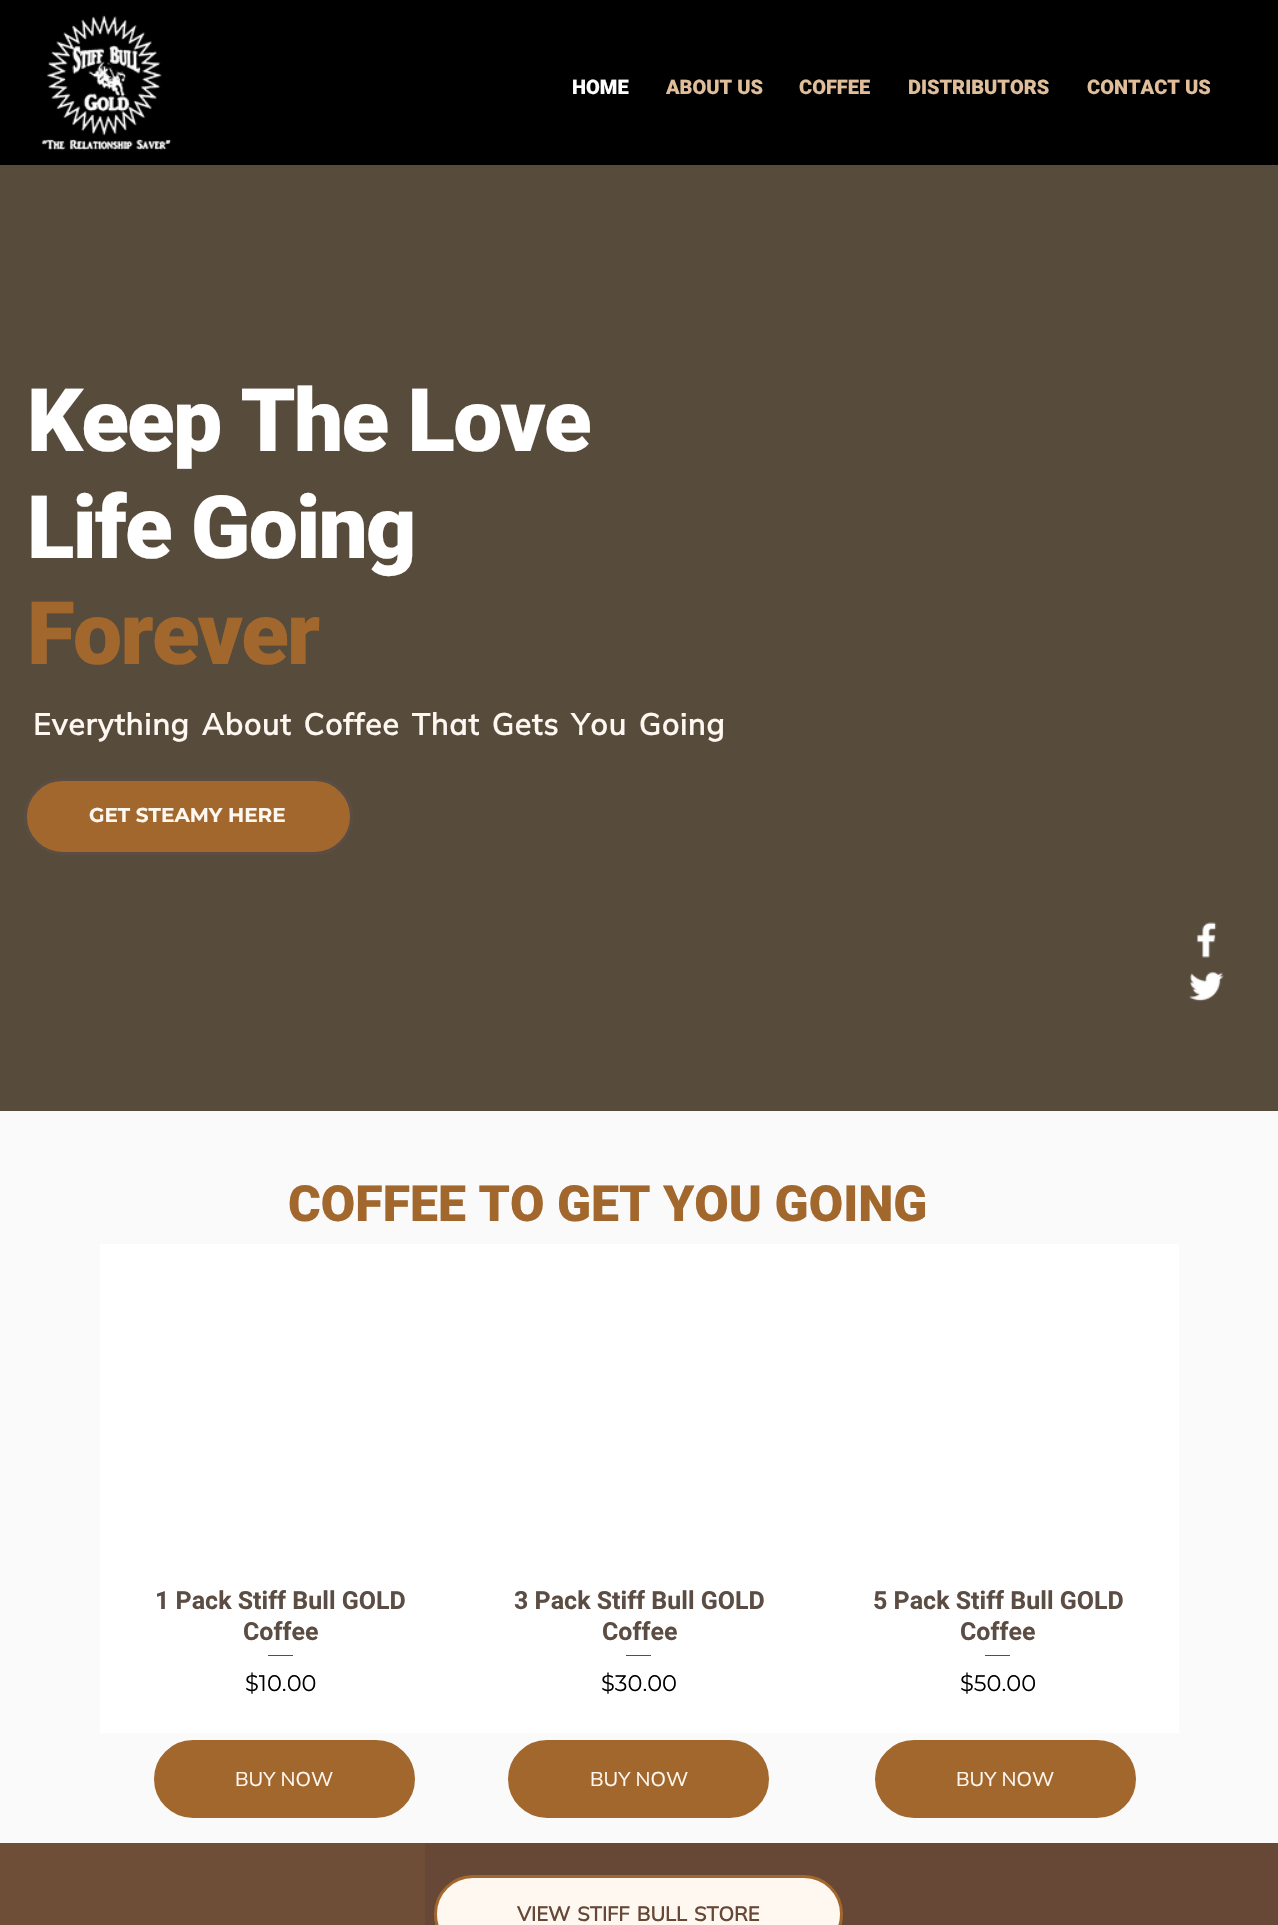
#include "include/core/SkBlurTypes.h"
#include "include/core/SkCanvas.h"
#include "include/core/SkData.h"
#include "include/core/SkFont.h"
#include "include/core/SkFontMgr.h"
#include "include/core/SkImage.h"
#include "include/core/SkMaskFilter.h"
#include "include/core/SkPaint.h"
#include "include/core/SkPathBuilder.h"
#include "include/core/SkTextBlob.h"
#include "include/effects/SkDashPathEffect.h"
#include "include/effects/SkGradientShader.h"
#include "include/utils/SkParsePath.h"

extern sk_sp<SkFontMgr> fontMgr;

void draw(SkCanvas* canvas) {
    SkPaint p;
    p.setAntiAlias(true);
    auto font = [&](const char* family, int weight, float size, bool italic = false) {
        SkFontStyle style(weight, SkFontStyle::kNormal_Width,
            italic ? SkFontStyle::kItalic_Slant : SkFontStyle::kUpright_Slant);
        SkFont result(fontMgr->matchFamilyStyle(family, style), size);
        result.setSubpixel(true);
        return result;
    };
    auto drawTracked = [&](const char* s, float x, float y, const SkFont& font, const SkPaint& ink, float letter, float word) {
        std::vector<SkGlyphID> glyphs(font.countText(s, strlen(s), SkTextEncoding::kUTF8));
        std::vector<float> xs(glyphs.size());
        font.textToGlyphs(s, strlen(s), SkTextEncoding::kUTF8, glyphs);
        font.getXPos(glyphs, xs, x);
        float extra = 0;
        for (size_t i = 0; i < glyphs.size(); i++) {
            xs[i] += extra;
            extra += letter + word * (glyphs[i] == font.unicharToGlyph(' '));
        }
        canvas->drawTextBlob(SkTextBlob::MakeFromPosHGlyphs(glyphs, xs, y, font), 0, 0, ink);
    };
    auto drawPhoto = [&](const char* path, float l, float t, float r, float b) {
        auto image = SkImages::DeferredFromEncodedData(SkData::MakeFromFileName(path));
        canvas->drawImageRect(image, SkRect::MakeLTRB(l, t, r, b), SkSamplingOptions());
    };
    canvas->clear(0xFF574B3C);
    p.setColor(0xFF000000);
    canvas->drawRect(SkRect::MakeLTRB(0, 0, 1278, 165), p);
    drawPhoto("media/1.png", 41, 15, 172, 151);
    auto font1 = font("Roboto", 900, 20);
    p.setColor(0xFFFFFFFF);
    canvas->drawString("HOME", 572, 94, font1, p);
    p.setColor(0xFFE0BE9A);
    {
        const struct { const char* s; float x, y; } items[] = {
            {"ABOUT US", 666, 94},
            {"COFFEE", 799, 94},
            {"DISTRIBUTORS", 908, 94},
            {"CONTACT US", 1087, 94},
        };
        for (auto [s, x, y] : items) {
            canvas->drawString(s, x, y, font1, p);
        }
    }
    auto font2 = font("Roboto", 900, 87.5f);
    p.setColor(0xFFFFFFFF);
    drawTracked("Keep The Love", 27, 451, font2, p, -1.75f, 0);
    drawTracked("Life Going", 27, 558, font2, p, -1.75f, 0);
    p.setColor(0xFFA2672D);
    drawTracked("Forever", 27, 664, font2, p, -1.75f, 0);
    auto font3 = font("Mulish", 700, 30);
    p.setColor(0xFFFFF8F1);
    drawTracked("Everything About Coffee That Gets You Going", 33, 735, font3, p, 0.9f, 3.5f);
    p.setColor(0xFFA2672D);
    canvas->drawRoundRect(SkRect::MakeLTRB(25.5f, 779.5f, 351.5f, 853.5f), 37, 37, p);
    p.setStyle(SkPaint::kStroke_Style);
    p.setStrokeWidth(3);
    p.setColor(0xFF5B4D43);
    canvas->drawRoundRect(SkRect::MakeLTRB(25.5f, 779.5f, 351.5f, 853.5f), 37, 37, p);
    auto font4 = font("Montserrat", 700, 20);
    p.setStyle(SkPaint::kFill_Style);
    p.setColor(0xFFFFF8F1);
    canvas->drawString("GET STEAMY HERE", 89, 822, font4, p);
    p.setColor(0xFFFAFAFA);
    canvas->drawRect(SkRect::MakeLTRB(0, 1111, 1278, 1733), p);
    auto font5 = font("Roboto", 900, 50);
    p.setColor(0xFFA2672D);
    canvas->drawString("COFFEE TO GET YOU GOING", 288, 1221, font5, p);
    p.setColor(0xFFFFFFFF);
    canvas->drawRect(SkRect::MakeLTRB(100, 1244, 1179, 1733), p);
    auto font6 = font("Roboto", 700, 25);
    p.setColor(0xFF5B4D43);
    canvas->drawString("1 Pack Stiff Bull GOLD", 155, 1609, font6, p);
    canvas->drawString("Coffee", 243, 1640, font6, p);
    canvas->drawRect(SkRect::MakeLTRB(268, 1655, 293, 1656), p);
    auto font7 = font("Montserrat", 400, 22.5f);
    p.setColor(0xFF000000);
    canvas->drawString("$10.00", 245, 1691, font7, p);
    p.setColor(0xFF5B4D43);
    canvas->drawString("3 Pack Stiff Bull GOLD", 514, 1609, font6, p);
    canvas->drawString("Coffee", 602, 1640, font6, p);
    canvas->drawRect(SkRect::MakeLTRB(626, 1655, 651, 1656), p);
    p.setColor(0xFF000000);
    canvas->drawString("$30.00", 601, 1691, font7, p);
    p.setColor(0xFF5B4D43);
    canvas->drawString("5 Pack Stiff Bull GOLD", 873, 1609, font6, p);
    canvas->drawString("Coffee", 960, 1640, font6, p);
    canvas->drawRect(SkRect::MakeLTRB(985, 1655, 1010, 1656), p);
    p.setColor(0xFF000000);
    canvas->drawString("$50.00", 960, 1691, font7, p);
    p.setColor(0xFFFAFAFA);
    canvas->drawRect(SkRect::MakeLTRB(0, 1733, 1278, 1843), p);
    p.setColor(0xFFA2672D);
    canvas->drawRoundRect(SkRect::MakeLTRB(155.5f, 1741.5f, 413.5f, 1816.5f), 37.5f, 37.5f, p);
    p.setStyle(SkPaint::kStroke_Style);
    canvas->drawRoundRect(SkRect::MakeLTRB(155.5f, 1741.5f, 413.5f, 1816.5f), 37.5f, 37.5f, p);
    auto font8 = font("Mulish", 400, 20);
    p.setStyle(SkPaint::kFill_Style);
    p.setColor(0xFFFFF8F1);
    canvas->drawString("BUY NOW", 235, 1786, font8, p);
    p.setColor(0xFFA2672D);
    canvas->drawRoundRect(SkRect::MakeLTRB(509.5f, 1741.5f, 767.5f, 1816.5f), 37.5f, 37.5f, p);
    p.setStyle(SkPaint::kStroke_Style);
    canvas->drawRoundRect(SkRect::MakeLTRB(509.5f, 1741.5f, 767.5f, 1816.5f), 37.5f, 37.5f, p);
    p.setStyle(SkPaint::kFill_Style);
    p.setColor(0xFFFFF8F1);
    canvas->drawString("BUY NOW", 590, 1786, font8, p);
    p.setColor(0xFFA2672D);
    canvas->drawRoundRect(SkRect::MakeLTRB(876.5f, 1741.5f, 1134.5f, 1816.5f), 37.5f, 37.5f, p);
    p.setStyle(SkPaint::kStroke_Style);
    canvas->drawRoundRect(SkRect::MakeLTRB(876.5f, 1741.5f, 1134.5f, 1816.5f), 37.5f, 37.5f, p);
    p.setStyle(SkPaint::kFill_Style);
    p.setColor(0xFFFFF8F1);
    canvas->drawString("BUY NOW", 956, 1786, font8, p);
    p.setColor(0xFF6F4E37);
    canvas->drawRect(SkRect::MakeLTRB(0, 1843, 425, 1925), p);
    p.setColor(0xFF674736);
    canvas->drawRect(SkRect::MakeLTRB(425, 1843, 1278, 1925), p);
    p.setColor(0xFFFFF8F1);
    canvas->drawRoundRect(SkRect::MakeLTRB(435.5f, 1876.5f, 841.5f, 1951.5f), 37.5f, 37.5f, p);
    p.setStyle(SkPaint::kStroke_Style);
    p.setColor(0xFFA2672D);
    canvas->drawRoundRect(SkRect::MakeLTRB(435.5f, 1876.5f, 841.5f, 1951.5f), 37.5f, 37.5f, p);
    auto font9 = font("Mulish", 700, 20);
    p.setStyle(SkPaint::kFill_Style);
    p.setColor(0xFF674736);
    drawTracked("VIEW STIFF BULL STORE", 517, 1921, font9, p, 0, 2);
    drawPhoto("media/2.png", 1196, 922, 1217, 958);
    drawPhoto("media/3.png", 1189, 971, 1224, 1002);
}
